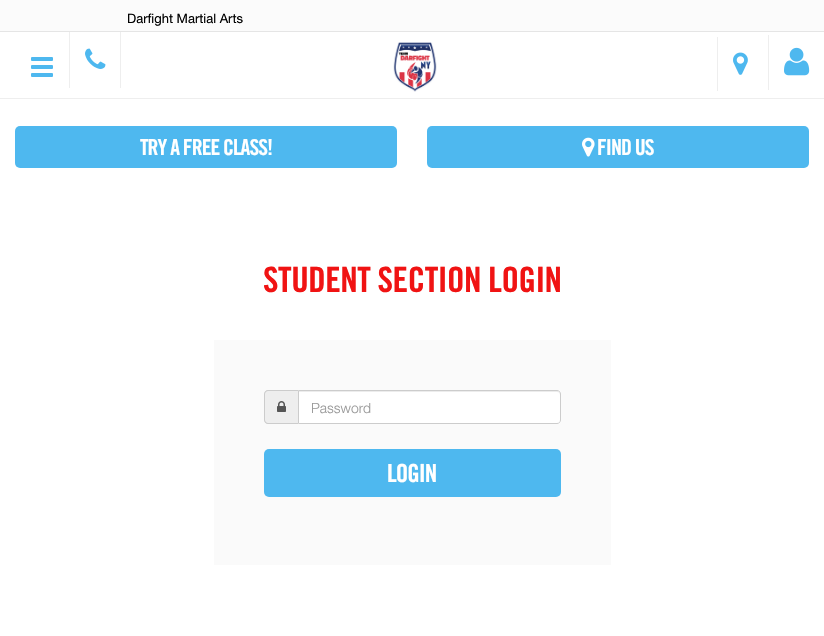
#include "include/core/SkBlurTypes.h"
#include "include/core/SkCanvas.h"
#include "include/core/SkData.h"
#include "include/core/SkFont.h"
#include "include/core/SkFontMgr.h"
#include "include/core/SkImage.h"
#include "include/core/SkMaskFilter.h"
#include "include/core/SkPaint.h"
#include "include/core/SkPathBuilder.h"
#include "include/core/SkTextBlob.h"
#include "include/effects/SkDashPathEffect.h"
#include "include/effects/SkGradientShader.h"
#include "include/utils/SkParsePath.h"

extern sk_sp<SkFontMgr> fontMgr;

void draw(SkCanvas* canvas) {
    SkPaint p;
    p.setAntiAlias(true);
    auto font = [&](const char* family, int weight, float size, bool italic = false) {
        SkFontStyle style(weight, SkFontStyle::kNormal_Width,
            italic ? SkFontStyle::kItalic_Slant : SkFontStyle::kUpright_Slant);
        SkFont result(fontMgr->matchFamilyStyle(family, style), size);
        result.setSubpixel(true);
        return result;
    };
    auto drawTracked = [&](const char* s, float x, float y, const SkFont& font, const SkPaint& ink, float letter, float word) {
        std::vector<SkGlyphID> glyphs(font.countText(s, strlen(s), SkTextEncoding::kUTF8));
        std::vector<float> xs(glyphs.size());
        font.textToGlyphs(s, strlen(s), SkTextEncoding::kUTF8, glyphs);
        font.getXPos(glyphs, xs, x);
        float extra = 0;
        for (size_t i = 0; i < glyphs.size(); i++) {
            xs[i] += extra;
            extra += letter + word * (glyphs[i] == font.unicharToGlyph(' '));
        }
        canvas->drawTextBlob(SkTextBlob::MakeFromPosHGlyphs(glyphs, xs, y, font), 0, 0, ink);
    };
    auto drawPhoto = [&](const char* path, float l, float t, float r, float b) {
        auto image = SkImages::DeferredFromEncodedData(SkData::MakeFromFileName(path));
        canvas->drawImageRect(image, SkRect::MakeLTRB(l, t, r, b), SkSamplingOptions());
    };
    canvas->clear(0xFFFFFFFF);
    p.setColor(0xFFFBFBFB);
    canvas->drawRect(SkRect::MakeLTRB(0, 0, 824, 31), p);
    p.setColor(0xFFE5E5E5);
    canvas->drawRect(SkRect::MakeLTRB(0, 31, 824, 32), p);
    auto font1 = font("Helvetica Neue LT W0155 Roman", 400, 13);
    p.setColor(0xFF000000);
    canvas->drawString("Darfight Martial Arts", 127, 23, font1, p);
    p.setColor(0xFF4EB8EF);
    canvas->drawRoundRect(SkRect::MakeLTRB(31, 57, 53, 61), 1, 1, p);
    canvas->drawRoundRect(SkRect::MakeLTRB(31, 65, 53, 69), 1, 1, p);
    canvas->drawRoundRect(SkRect::MakeLTRB(31, 73, 53, 77), 1, 1, p);
    p.setColor(0xFFEEEEEE);
    canvas->drawRect(SkRect::MakeLTRB(120, 32, 121, 88), p);
    canvas->drawRect(SkRect::MakeLTRB(69, 32, 70, 88), p);
    drawPhoto("media/1.png", 85, 48, 106, 69);
    drawPhoto("media/2.png", 393, 42, 437, 92);
    canvas->drawRect(SkRect::MakeLTRB(717, 37, 718, 91), p);
    drawPhoto("media/3.png", 733, 52, 748, 75);
    canvas->drawRect(SkRect::MakeLTRB(768, 35, 769, 90), p);
    drawPhoto("media/4.png", 784, 47, 810, 76);
    canvas->drawRect(SkRect::MakeLTRB(0, 98, 824, 99), p);
    p.setColor(0xFF4EB8EF);
    canvas->drawRoundRect(SkRect::MakeLTRB(15, 126, 397, 168), 5, 5, p);
    auto font2 = font("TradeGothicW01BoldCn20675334", 700, 22);
    p.setColor(0xFFFFFFFF);
    drawTracked("TRY A FREE CLASS!", 140, 155, font2, p, -1, 0);
    p.setColor(0xFF4EB8EF);
    canvas->drawRoundRect(SkRect::MakeLTRB(427, 126, 809, 168), 5, 5, p);
    drawPhoto("media/5.png", 582, 137, 595, 157);
    p.setColor(0xFFFFFFFF);
    drawTracked("FIND US", 597, 155, font2, p, -1, 0);
    auto font3 = font("TradeGothicW01BoldCn20675334", 700, 35);
    p.setColor(0xFFF01313);
    drawTracked("STUDENT SECTION LOGIN", 263, 292, font3, p, -0.5f, 0);
    p.setColor(0xFFFAFAFA);
    canvas->drawRect(SkRect::MakeLTRB(214, 340, 611, 565), p);
    p.setColor(0xFFEEEEEE);
    canvas->drawPath(SkPathBuilder().moveTo(268, 390).lineTo(298, 390).lineTo(298, 424).lineTo(268, 424).cubicTo(266, 424, 264, 422, 264, 420).lineTo(264, 394).cubicTo(264, 392, 266, 390, 268, 390).close().detach(), p);
    p.setColor(0xFFCCCCCC);
    canvas->drawPath(SkPathBuilder(SkPathFillType::kEvenOdd).moveTo(268, 390).lineTo(298, 390).lineTo(298, 424).lineTo(268, 424).cubicTo(266, 424, 264, 422, 264, 420).lineTo(264, 394).cubicTo(264, 392, 266, 390, 268, 390).close().moveTo(268, 391).lineTo(298, 391).lineTo(298, 423).lineTo(268, 423).cubicTo(266.5f, 423, 265, 421.5f, 265, 420).lineTo(265, 394).cubicTo(265, 392.5f, 266.5f, 391, 268, 391).close().detach(), p);
    drawPhoto("media/6.png", 277, 401, 286, 412);
    p.setColor(0xFFFFFFFF);
    canvas->drawPath(SkPathBuilder().moveTo(298, 390).lineTo(557, 390).cubicTo(559, 390, 561, 392, 561, 394).lineTo(561, 420).cubicTo(561, 422, 559, 424, 557, 424).lineTo(298, 424).close().detach(), p);
    p.setColor(0xFFECECEC);
    canvas->drawPath(SkPathBuilder().moveTo(299, 392).lineTo(557, 392).cubicTo(559, 392, 560, 393, 560, 395).lineTo(560, 394).cubicTo(560, 392, 559, 391, 557, 391).lineTo(299, 391).close().detach(), p);
    p.setStyle(SkPaint::kStroke_Style);
    p.setStrokeWidth(1);
    p.setColor(0xFFCCCCCC);
    canvas->drawPath(SkPathBuilder().moveTo(298.5f, 390.5f).lineTo(557, 390.5f).cubicTo(559, 390.5f, 560.5f, 392, 560.5f, 394).lineTo(560.5f, 420).cubicTo(560.5f, 422, 559, 423.5f, 557, 423.5f).lineTo(298.5f, 423.5f).close().detach(), p);
    auto font4 = font("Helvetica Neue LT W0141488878", 300, 14);
    p.setStyle(SkPaint::kFill_Style);
    p.setColor(0xFF999999);
    canvas->drawString("Password", 311, 413, font4, p);
    p.setColor(0xFF4EB8EF);
    canvas->drawRoundRect(SkRect::MakeLTRB(264, 449, 561, 497), 5, 5, p);
    auto font5 = font("TradeGothicW01BoldCn20675334", 700, 25);
    p.setColor(0xFFFFFFFF);
    drawTracked("LOGIN", 387, 482, font5, p, -1, 0);
}
